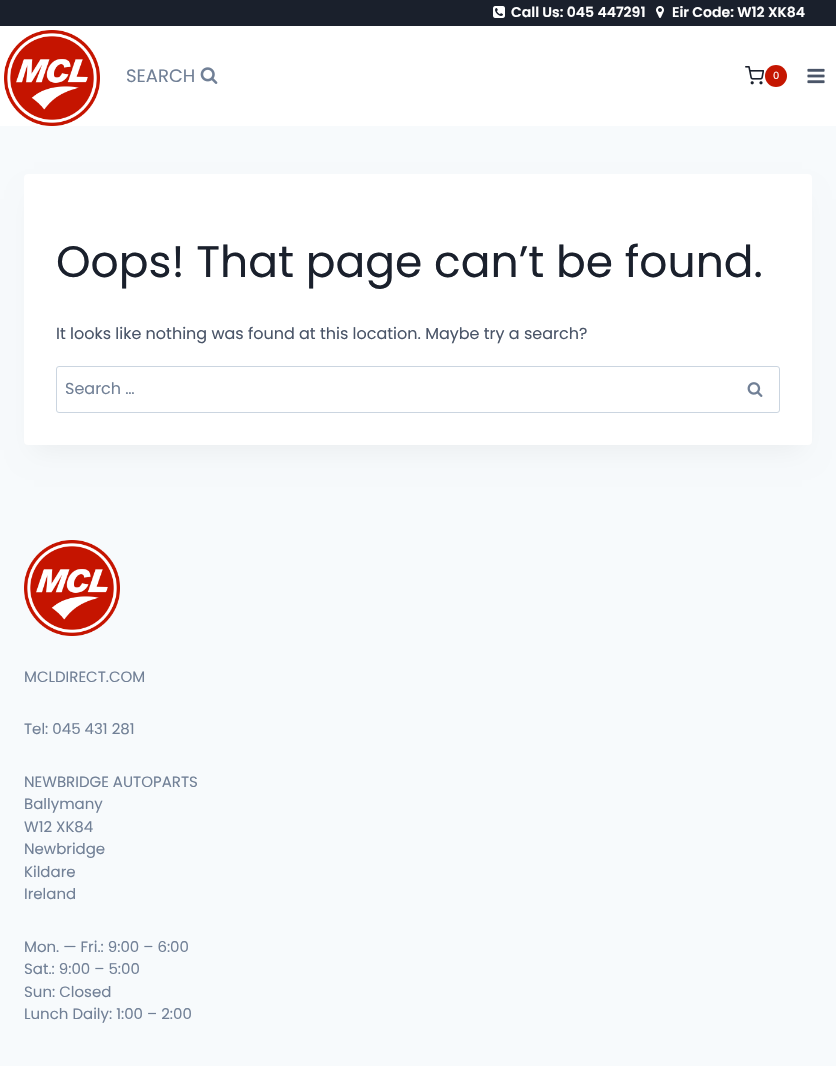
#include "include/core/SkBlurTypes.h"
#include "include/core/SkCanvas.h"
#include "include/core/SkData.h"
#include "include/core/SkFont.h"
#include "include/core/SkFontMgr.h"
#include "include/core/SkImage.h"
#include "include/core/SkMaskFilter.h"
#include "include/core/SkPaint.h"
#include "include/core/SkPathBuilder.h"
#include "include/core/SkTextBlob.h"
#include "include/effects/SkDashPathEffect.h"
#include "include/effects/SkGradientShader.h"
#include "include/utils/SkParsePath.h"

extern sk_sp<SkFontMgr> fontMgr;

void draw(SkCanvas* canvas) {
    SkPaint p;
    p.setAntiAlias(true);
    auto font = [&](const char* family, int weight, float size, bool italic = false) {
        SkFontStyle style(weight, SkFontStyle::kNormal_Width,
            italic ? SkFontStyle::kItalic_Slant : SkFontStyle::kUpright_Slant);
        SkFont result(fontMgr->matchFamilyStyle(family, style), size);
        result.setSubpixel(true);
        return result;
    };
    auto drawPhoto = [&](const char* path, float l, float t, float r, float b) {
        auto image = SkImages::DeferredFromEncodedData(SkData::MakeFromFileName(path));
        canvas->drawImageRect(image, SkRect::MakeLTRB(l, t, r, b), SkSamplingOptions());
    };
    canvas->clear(0xFFF7FAFC);
    p.setColor(0xFFFFFFFF);
    canvas->drawRect(SkRect::MakeLTRB(0, 26, 836, 126), p);
    p.setColor(0xFF1A202C);
    canvas->drawRect(SkRect::MakeLTRB(0, 0, 836, 26), p);
    drawPhoto("media/1.png", 493, 6, 505, 18);
    auto font1 = font("Poppins", 600, 14);
    p.setColor(0xFFFFFFFF);
    canvas->drawString("Call Us: 045 447291", 511, 17, font1, p);
    drawPhoto("media/2.png", 656, 6, 664, 18);
    canvas->drawString("Eir Code: W12 XK84", 672, 17, font1, p);
    drawPhoto("media/3.png", 4, 30, 100, 126);
    auto font2 = font("Poppins", 400, 18);
    p.setColor(0xFF718096);
    canvas->drawString("SEARCH", 126, 82, font2, p);
    drawPhoto("media/4.png", 200, 67, 218, 84);
    drawPhoto("media/5.png", 745, 66, 764, 85);
    p.setColor(0xFFC51601);
    canvas->drawCircle(776, 76, 11, p);
    auto font3 = font("Poppins", 400, 10);
    p.setColor(0xFFFFFFFF);
    canvas->drawString("0", 773, 79, font3, p);
    drawPhoto("media/6.png", 807, 68, 825, 84);
    p.setColor(0x0D000000);
    p.setMaskFilter(SkMaskFilter::MakeBlur(kNormal_SkBlurStyle, 12.5f));
    canvas->drawRect(SkRect::MakeLTRB(34, 199, 802, 450), p);
    p.setMaskFilter(nullptr);
    p.setColor(0xFFFFFFFF);
    canvas->drawRoundRect(SkRect::MakeLTRB(24, 174, 812, 445), 4, 4, p);
    auto font4 = font("Poppins", 400, 44);
    p.setColor(0xFF1A202C);
    canvas->drawString("Oops! That page can’t be found.", 56, 277, font4, p);
    auto font5 = font("Poppins", 400, 16);
    p.setColor(0xFF4A5568);
    canvas->drawString("It looks like nothing was found at this location. Maybe try a search?", 56, 339, font5, p);
    p.setStyle(SkPaint::kStroke_Style);
    p.setStrokeWidth(1);
    p.setColor(0xFFCBD5E0);
    canvas->drawRoundRect(SkRect::MakeLTRB(56.5f, 366.5f, 779.5f, 412.5f), 2.5f, 2.5f, p);
    p.setStyle(SkPaint::kFill_Style);
    p.setColor(0xFF718096);
    canvas->drawString("Search …", 65, 394, font5, p);
    drawPhoto("media/7.png", 747, 382, 763, 397);
    drawPhoto("media/8.png", 24, 540, 120, 636);
    auto font6 = font("Poppins", 400, 15);
    {
        const struct { const char* s; float x, y; } items[] = {
            {"MCLDIRECT.COM", 24, 682},
            {"Tel: 045 431 281", 24, 734},
            {"NEWBRIDGE AUTOPARTS", 24, 787},
            {"Ballymany", 24, 809},
            {"W12 XK84", 24, 832},
            {"Newbridge", 24, 854},
            {"Kildare", 24, 877},
            {"Ireland", 24, 899},
            {"Mon. — Fri.: 9:00 – 6:00", 24, 952},
            {"Sat.: 9:00 – 5:00", 24, 974},
            {"Sun: Closed", 24, 997},
            {"Lunch Daily: 1:00 – 2:00", 24, 1019},
        };
        for (auto [s, x, y] : items) {
            canvas->drawString(s, x, y, font6, p);
        }
    }
}
